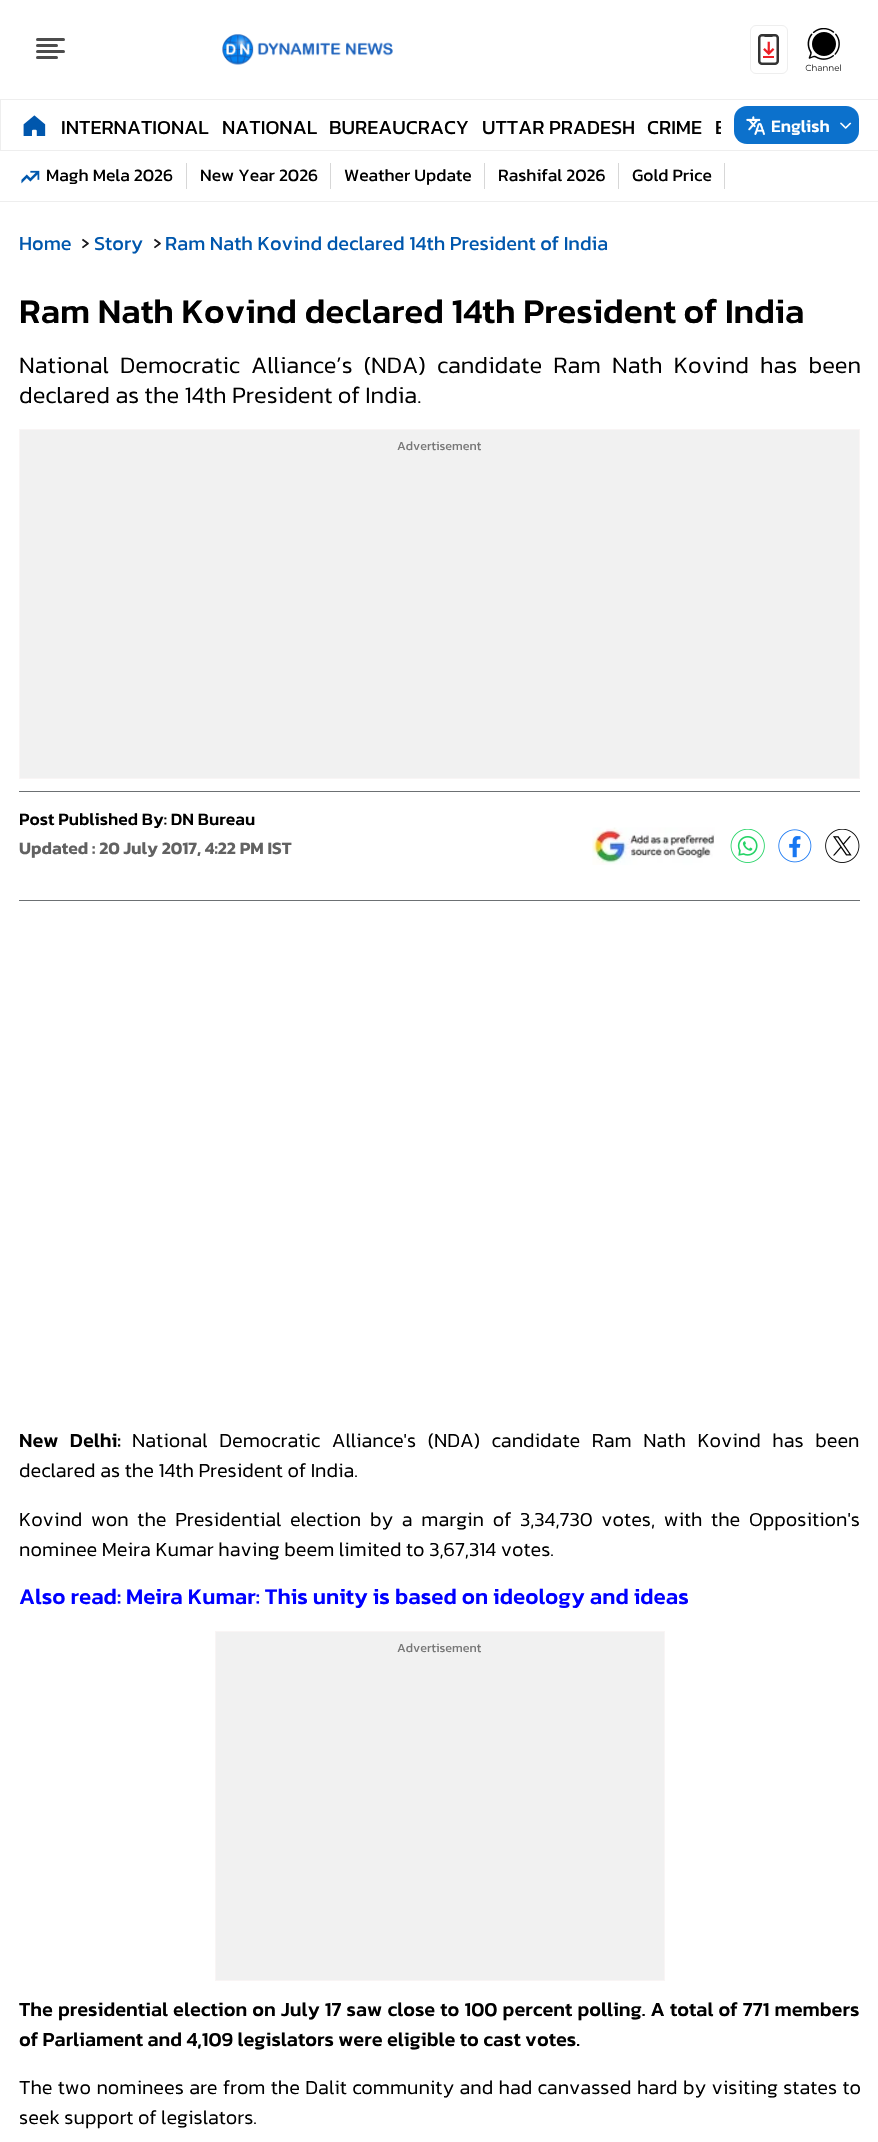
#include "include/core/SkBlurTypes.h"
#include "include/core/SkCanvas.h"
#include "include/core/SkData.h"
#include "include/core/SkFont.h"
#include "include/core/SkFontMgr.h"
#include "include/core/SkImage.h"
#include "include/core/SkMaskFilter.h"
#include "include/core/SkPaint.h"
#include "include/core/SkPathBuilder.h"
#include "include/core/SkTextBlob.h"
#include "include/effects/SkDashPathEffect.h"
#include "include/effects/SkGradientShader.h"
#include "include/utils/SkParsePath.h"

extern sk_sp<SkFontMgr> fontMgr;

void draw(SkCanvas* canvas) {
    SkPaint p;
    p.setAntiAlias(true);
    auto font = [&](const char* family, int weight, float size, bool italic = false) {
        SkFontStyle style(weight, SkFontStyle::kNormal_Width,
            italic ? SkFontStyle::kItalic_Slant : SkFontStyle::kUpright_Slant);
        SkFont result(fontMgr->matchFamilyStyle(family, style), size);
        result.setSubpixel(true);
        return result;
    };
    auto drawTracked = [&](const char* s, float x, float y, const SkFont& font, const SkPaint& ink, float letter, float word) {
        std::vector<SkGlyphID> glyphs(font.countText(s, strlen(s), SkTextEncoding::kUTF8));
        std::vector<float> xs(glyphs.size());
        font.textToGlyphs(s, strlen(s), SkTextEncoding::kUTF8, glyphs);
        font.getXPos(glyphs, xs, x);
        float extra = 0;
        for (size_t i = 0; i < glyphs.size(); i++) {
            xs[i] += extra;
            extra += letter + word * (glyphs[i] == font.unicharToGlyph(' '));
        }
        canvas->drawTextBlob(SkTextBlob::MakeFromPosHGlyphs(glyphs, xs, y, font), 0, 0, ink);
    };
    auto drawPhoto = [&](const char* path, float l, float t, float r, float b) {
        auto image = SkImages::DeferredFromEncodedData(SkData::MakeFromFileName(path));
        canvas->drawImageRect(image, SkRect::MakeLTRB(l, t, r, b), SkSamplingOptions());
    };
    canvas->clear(0xFFFFFFFF);
    p.setColor(0xFF4C4C4C);
    canvas->drawRoundRect(SkRect::MakeLTRB(36, 38, 65, 41), 1.5f, 1.5f, p);
    canvas->drawRoundRect(SkRect::MakeLTRB(36, 44, 58, 47), 1.5f, 1.5f, p);
    canvas->drawRoundRect(SkRect::MakeLTRB(36, 50, 65, 53), 1.5f, 1.5f, p);
    canvas->drawRoundRect(SkRect::MakeLTRB(36, 56, 58, 59), 1.5f, 1.5f, p);
    drawPhoto("media/1.png", 222, 34, 393, 65);
    p.setStyle(SkPaint::kStroke_Style);
    p.setStrokeWidth(1);
    p.setColor(0xFFEEEEEE);
    canvas->drawRoundRect(SkRect::MakeLTRB(750.5f, 25.5f, 787.5f, 73.5f), 5.5f, 5.5f, p);
    drawPhoto("media/2.png", 758, 34, 779, 65);
    drawPhoto("media/3.png", 805, 28, 841, 71);
    canvas->drawRect(SkRect::MakeLTRB(0.5f, 99.5f, 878.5f, 150.5f), p);
    drawPhoto("media/4.png", 23, 115, 46, 136);
    auto font1 = font("Kanit", 400, 20);
    p.setStyle(SkPaint::kFill_Style);
    p.setColor(0xFF000000);
    {
        const struct { const char* s; float x, y; } items[] = {
            {"INTERNATIONAL", 61, 134},
            {"NATIONAL", 222, 134},
            {"BUREAUCRACY", 329, 134},
            {"UTTAR PRADESH", 482, 134},
            {"CRIME", 647, 134},
        };
        for (auto [s, x, y] : items) {
            canvas->drawString(s, x, y, font1, p);
        }
    }
    canvas->save();
    canvas->clipRect(SkRect::MakeLTRB(20, 100, 721, 150));
    canvas->drawString("E", 715, 134, font1, p);
    canvas->restore();
    p.setColor(0xFF0C71CC);
    canvas->drawRoundRect(SkRect::MakeLTRB(734, 106, 859, 144), 13, 13, p);
    drawPhoto("media/5.png", 746, 116, 765, 135);
    auto font2 = font("Kanit", 500, 17.5f);
    p.setColor(0xFFFFFFFF);
    canvas->drawString("English", 771, 132, font2, p);
    drawPhoto("media/6.png", 840, 122, 852, 129);
    p.setColor(0xFFEEEEEE);
    canvas->drawRect(SkRect::MakeLTRB(0, 201, 878, 202), p);
    drawPhoto("media/7.png", 21, 170, 40, 184);
    auto font3 = font("Kanit", 400, 17.5f);
    p.setColor(0xFF000000);
    canvas->drawString("Magh Mela 2026", 46, 181, font3, p);
    p.setColor(0xFFD7D7D7);
    canvas->drawRect(SkRect::MakeLTRB(186, 163, 187, 189), p);
    p.setColor(0xFF000000);
    canvas->drawString("New Year 2026", 200, 181, font3, p);
    p.setColor(0xFFD7D7D7);
    canvas->drawRect(SkRect::MakeLTRB(330, 163, 331, 189), p);
    p.setColor(0xFF000000);
    canvas->drawString("Weather Update", 344, 181, font3, p);
    p.setColor(0xFFD7D7D7);
    canvas->drawRect(SkRect::MakeLTRB(484, 163, 485, 189), p);
    p.setColor(0xFF000000);
    canvas->drawString("Rashifal 2026", 498, 181, font3, p);
    p.setColor(0xFFD7D7D7);
    canvas->drawRect(SkRect::MakeLTRB(618, 163, 619, 189), p);
    p.setColor(0xFF000000);
    canvas->drawString("Gold Price", 632, 181, font3, p);
    p.setColor(0xFFD7D7D7);
    canvas->drawRect(SkRect::MakeLTRB(724, 163, 725, 189), p);
    p.setColor(0xFF0057AD);
    canvas->drawString("Home", 19, 250, font1, p);
    auto font4 = font("Kanit", 400, 22.5f);
    p.setColor(0xFF1C1B1F);
    canvas->drawString("›", 81, 250, font4, p);
    p.setColor(0xFF0057AD);
    canvas->drawString("Story", 94, 250, font1, p);
    p.setColor(0xFF1C1B1F);
    canvas->drawString("›", 153, 250, font4, p);
    p.setColor(0xFF0057AD);
    canvas->drawString("Ram Nath Kovind declared 14th President of India", 165, 250, font1, p);
    auto font5 = font("Kanit", 500, 35);
    p.setColor(0xFF000000);
    canvas->drawString("Ram Nath Kovind declared 14th President of India", 19, 323, font5, p);
    auto font6 = font("Kanit", 300, 23.75f);
    drawTracked("National Democratic Alliance’s (NDA) candidate Ram Nath Kovind has been", 19, 373, font6, p, 0, 5.75f);
    canvas->drawString("declared as the 14th President of India.", 19, 403, font6, p);
    p.setColor(0xFFF1F1F1);
    canvas->drawRect(SkRect::MakeLTRB(19.5f, 429.5f, 859.5f, 778.5f), p);
    p.setStyle(SkPaint::kStroke_Style);
    p.setColor(0xFFF9F5F5);
    canvas->drawRect(SkRect::MakeLTRB(19.5f, 429.5f, 859.5f, 778.5f), p);
    auto font7 = font("Kanit", 400, 12.5f);
    p.setStyle(SkPaint::kFill_Style);
    p.setColor(0xFF777777);
    canvas->drawString("Advertisement", 397, 450, font7, p);
    p.setColor(0xFF6C7073);
    canvas->drawRect(SkRect::MakeLTRB(19, 791, 860, 792), p);
    canvas->drawRect(SkRect::MakeLTRB(19, 900, 860, 901), p);
    p.setColor(0xFF000000);
    canvas->drawString("Post Published By: DN Bureau", 19, 825, font2, p);
    auto font8 = font("Kanit", 600, 17.5f);
    p.setColor(0xFF626262);
    canvas->drawString("Updated : 20 July 2017, 4:22 PM IST", 19, 854, font8, p);
    drawPhoto("media/8.png", 592, 827, 715, 865);
    drawPhoto("media/9.png", 730, 829, 765, 863);
    drawPhoto("media/10.png", 778, 829, 812, 863);
    drawPhoto("media/11.png", 825, 829, 860, 863);
    auto font9 = font("Kanit", 500, 20);
    p.setColor(0xFF000000);
    drawTracked("New Delhi:", 19, 1447, font9, p, 0, 7);
    auto font10 = font("Kanit", 300, 20);
    drawTracked("National Democratic Alliance's (NDA) candidate Ram Nath Kovind has been", 132, 1447, font10, p, 0, 7);
    canvas->drawString("declared as the 14th President of India.", 19, 1477, font10, p);
    drawTracked("Kovind won the Presidential election by a margin of 3,34,730 votes, with the Opposition's", 19, 1526, font10, p, 0, 4.1f);
    canvas->drawString("nominee Meira Kumar having beem limited to 3,67,314 votes.", 19, 1556, font10, p);
    auto font11 = font("Kanit", 500, 22.5f);
    p.setColor(0xFF0000FF);
    canvas->drawString("Also read: Meira Kumar: This unity is based on ideology and ideas", 19, 1604, font11, p);
    p.setColor(0xFFF1F1F1);
    canvas->drawRect(SkRect::MakeLTRB(215.5f, 1631.5f, 664.5f, 1980.5f), p);
    p.setStyle(SkPaint::kStroke_Style);
    p.setColor(0xFFF9F5F5);
    canvas->drawRect(SkRect::MakeLTRB(215.5f, 1631.5f, 664.5f, 1980.5f), p);
    p.setStyle(SkPaint::kFill_Style);
    p.setColor(0xFF777777);
    canvas->drawString("Advertisement", 397, 1652, font7, p);
    p.setColor(0xFF000000);
    drawTracked("The presidential election on July 17 saw close to 100 percent polling. A total of 771 members", 19, 2016, font9, p, 0, 0.75f);
    canvas->drawString("of Parliament and 4,109 legislators were eligible to cast votes.", 19, 2046, font9, p);
    drawTracked("The two nominees are from the Dalit community and had canvassed hard by visiting states to", 19, 2094, font10, p, 0, 0.75f);
    canvas->drawString("seek support of legislators.", 19, 2124, font10, p);
}
